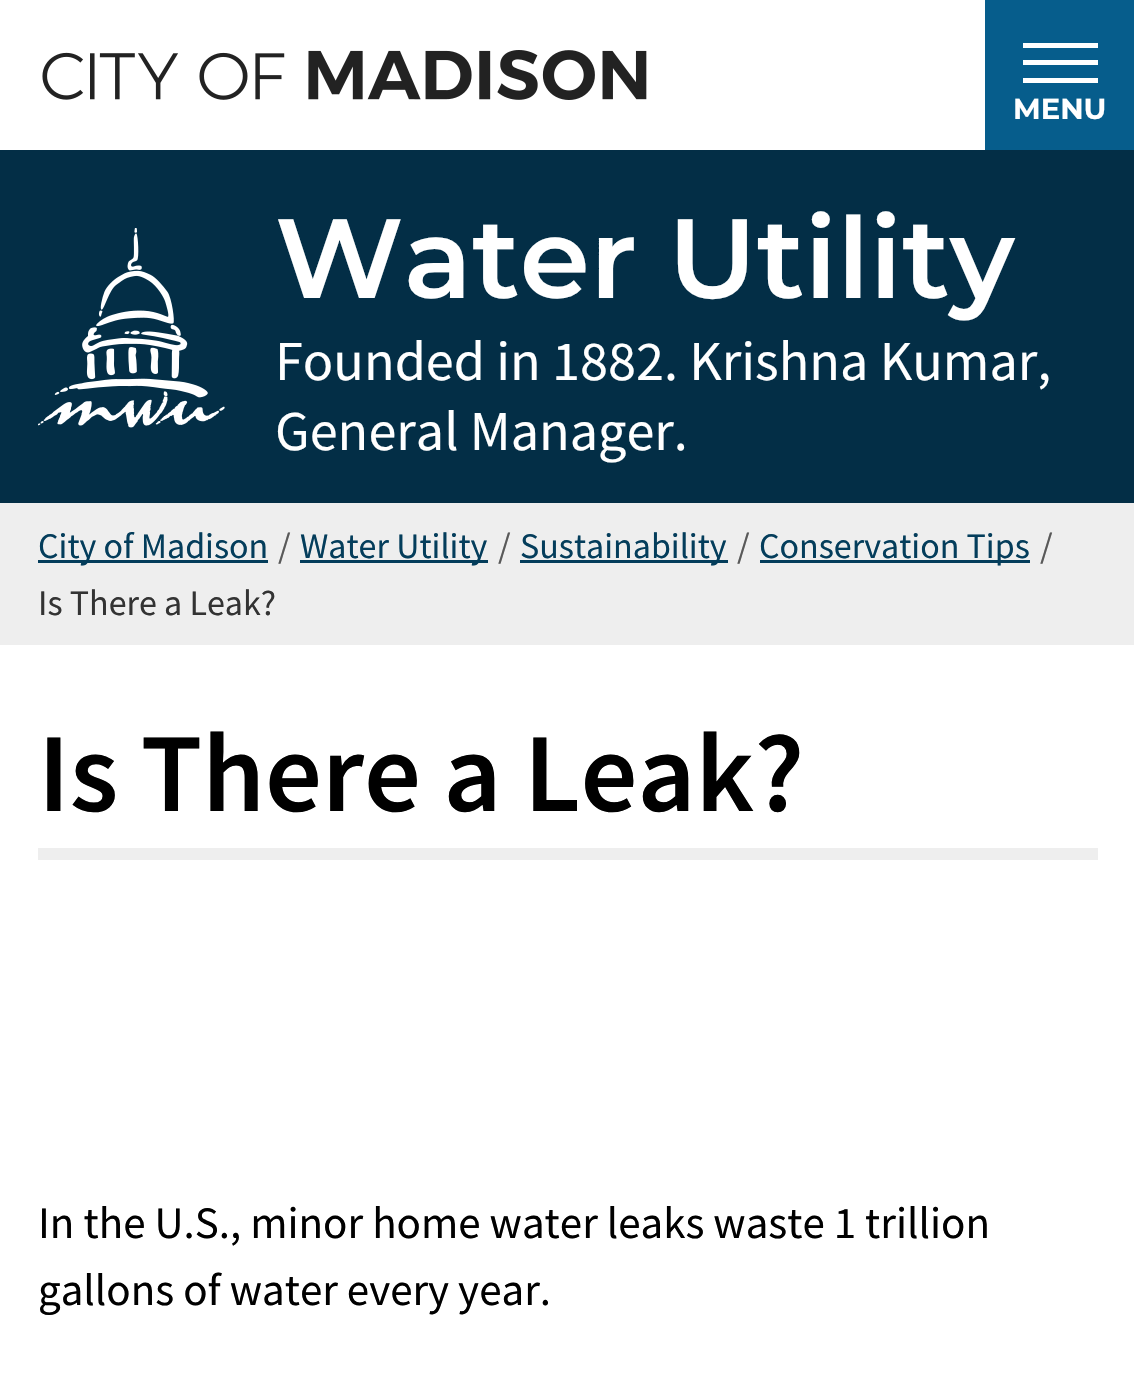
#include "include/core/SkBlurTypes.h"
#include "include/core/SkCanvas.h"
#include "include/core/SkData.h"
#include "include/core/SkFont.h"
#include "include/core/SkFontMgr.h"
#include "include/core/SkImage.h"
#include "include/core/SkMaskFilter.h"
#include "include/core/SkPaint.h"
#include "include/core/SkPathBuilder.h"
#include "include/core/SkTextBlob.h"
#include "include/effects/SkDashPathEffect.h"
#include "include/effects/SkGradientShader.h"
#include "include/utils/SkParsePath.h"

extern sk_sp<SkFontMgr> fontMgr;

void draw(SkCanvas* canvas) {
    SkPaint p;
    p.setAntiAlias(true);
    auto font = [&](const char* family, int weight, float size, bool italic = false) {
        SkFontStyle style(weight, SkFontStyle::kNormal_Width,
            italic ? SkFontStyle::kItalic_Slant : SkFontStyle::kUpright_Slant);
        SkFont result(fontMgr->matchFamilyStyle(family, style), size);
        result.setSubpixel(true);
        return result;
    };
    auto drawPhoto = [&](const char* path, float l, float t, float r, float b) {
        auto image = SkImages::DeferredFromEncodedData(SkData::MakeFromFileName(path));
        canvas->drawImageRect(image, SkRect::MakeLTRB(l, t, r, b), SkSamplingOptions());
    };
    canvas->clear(0xFFFFFFFF);
    drawPhoto("media/1.png", 42, 50, 647, 100);
    {
        const struct { float l, t, r, b; SkColor color; } items[] = {
            {985, 0, 1134, 150, 0xFF065D8C},
            {1023, 43, 1098, 48, 0xFFFFFFFF},
            {1023, 60, 1098, 65, 0xFFFFFFFF},
            {1023, 78, 1098, 83, 0xFFFFFFFF},
        };
        for (auto [l, t, r, b, color] : items) {
            p.setColor(color);
            canvas->drawRect(SkRect::MakeLTRB(l, t, r, b), p);
        }
    }
    auto font1 = font("Montserrat", 700, 29);
    canvas->drawString("MENU", 1013, 119, font1, p);
    p.setColor(0xFF032E46);
    canvas->drawRect(SkRect::MakeLTRB(0, 150, 1134, 503), p);
    drawPhoto("media/2.png", 38, 228, 225, 428);
    auto font2 = font("Montserrat", 600, 112.5f);
    p.setColor(0xFFFFFFFF);
    canvas->drawString("Water Utility", 275, 298, font2, p);
    auto font3 = font("Source Sans Pro", 400, 56.25f);
    canvas->drawString("Founded in 1882. Krishna Kumar,", 275, 380, font3, p);
    canvas->drawString("General Manager.", 275, 450, font3, p);
    p.setColor(0xFFEEEEEE);
    canvas->drawRect(SkRect::MakeLTRB(0, 503, 1134, 645), p);
    p.setColor(0xFF043D5B);
    canvas->drawRect(SkRect::MakeLTRB(38, 560, 268, 563), p);
    auto font4 = font("Source Sans Pro", 400, 36);
    canvas->drawString("City of Madison", 38, 558, font4, p);
    p.setColor(0xFF595959);
    canvas->drawString("/", 278, 558, font4, p);
    p.setColor(0xFF043D5B);
    canvas->drawRect(SkRect::MakeLTRB(300, 560, 488, 563), p);
    canvas->drawString("Water Utility", 300, 558, font4, p);
    p.setColor(0xFF595959);
    canvas->drawString("/", 498, 558, font4, p);
    p.setColor(0xFF043D5B);
    canvas->drawRect(SkRect::MakeLTRB(520, 560, 728, 563), p);
    canvas->drawString("Sustainability", 520, 558, font4, p);
    p.setColor(0xFF595959);
    canvas->drawString("/", 737, 558, font4, p);
    p.setColor(0xFF043D5B);
    canvas->drawRect(SkRect::MakeLTRB(760, 560, 1030, 563), p);
    canvas->drawString("Conservation Tips", 759, 558, font4, p);
    p.setColor(0xFF595959);
    canvas->drawString("/", 1040, 558, font4, p);
    p.setColor(0xFF333333);
    canvas->drawString("Is There a Leak?", 38, 615, font4, p);
    p.setColor(0xFFEEEEEE);
    canvas->drawRect(SkRect::MakeLTRB(38, 848, 1098, 860), p);
    auto font5 = font("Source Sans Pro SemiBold", 600, 112.5f);
    p.setColor(0xFF000000);
    canvas->drawString("Is There a Leak?", 38, 811, font5, p);
    auto font6 = font("Source Sans Pro", 400, 45);
    canvas->drawString("In the U.S., minor home water leaks waste 1 trillion", 38, 1238, font6, p);
    canvas->drawString("gallons of water every year.", 38, 1305, font6, p);
}
